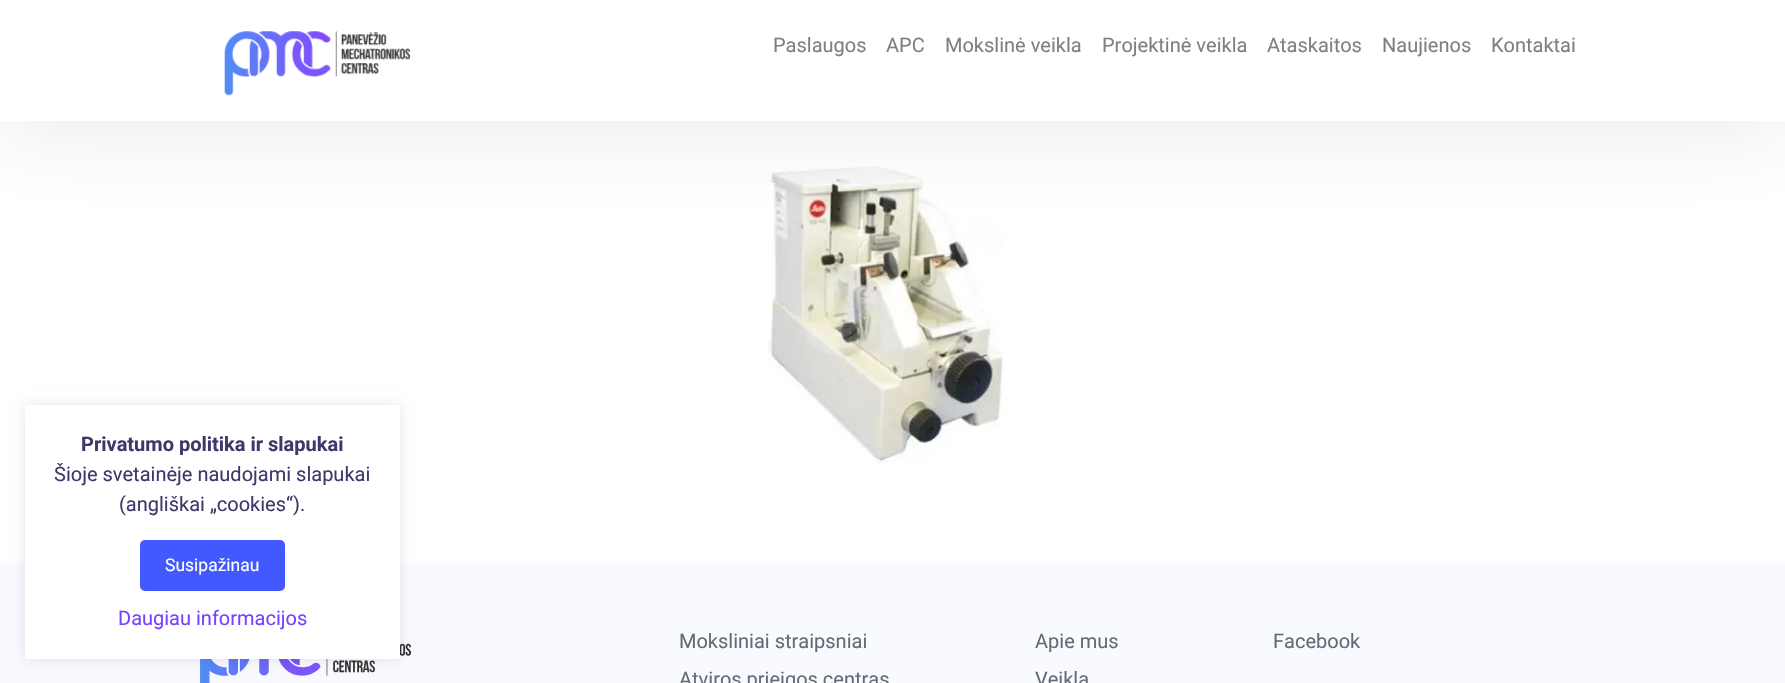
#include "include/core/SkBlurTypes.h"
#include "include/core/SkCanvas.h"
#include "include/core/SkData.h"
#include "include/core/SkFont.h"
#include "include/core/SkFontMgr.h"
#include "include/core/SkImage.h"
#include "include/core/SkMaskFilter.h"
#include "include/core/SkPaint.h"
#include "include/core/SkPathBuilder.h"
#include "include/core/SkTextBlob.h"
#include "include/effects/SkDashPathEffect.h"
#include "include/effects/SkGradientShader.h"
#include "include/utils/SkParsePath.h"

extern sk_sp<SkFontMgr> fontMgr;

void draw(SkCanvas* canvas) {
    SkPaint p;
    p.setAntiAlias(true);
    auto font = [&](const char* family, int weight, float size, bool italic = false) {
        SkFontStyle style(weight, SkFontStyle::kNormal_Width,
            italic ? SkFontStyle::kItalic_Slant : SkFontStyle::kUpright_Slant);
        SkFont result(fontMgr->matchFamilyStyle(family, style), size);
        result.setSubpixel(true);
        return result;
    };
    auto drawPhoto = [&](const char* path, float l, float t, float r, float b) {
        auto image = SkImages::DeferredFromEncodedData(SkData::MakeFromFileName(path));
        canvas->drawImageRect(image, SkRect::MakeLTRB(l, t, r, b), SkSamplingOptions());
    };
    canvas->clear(0xFFFFFFFF);
    drawPhoto("media/2.png", 768, 166, 1004, 463);
    p.setColor(0x1A3E396B);
    p.setMaskFilter(SkMaskFilter::MakeBlur(kNormal_SkBlurStyle, 42.5f));
    canvas->drawRect(SkRect::MakeLTRB(0, 11, 1785, 133), p);
    p.setMaskFilter(nullptr);
    p.setColor(0xFFFFFFFF);
    canvas->drawRect(SkRect::MakeLTRB(0, 0, 1785, 121), p);
    drawPhoto("media/1.png", 224, 31, 411, 96);
    auto font1 = font("Roboto", 400, 20);
    p.setColor(0xFF808080);
    {
        const struct { const char* s; float x, y; } items[] = {
            {"Paslaugos", 773, 52},
            {"APC", 886, 52},
            {"Mokslinė veikla", 945, 52},
            {"Projektinė veikla", 1102, 52},
            {"Ataskaitos", 1267, 52},
            {"Naujienos", 1382, 52},
            {"Kontaktai", 1491, 52},
        };
        for (auto [s, x, y] : items) {
            canvas->drawString(s, x, y, font1, p);
        }
    }
    p.setColor(0xFFF8FAFF);
    canvas->drawRect(SkRect::MakeLTRB(0, 563, 1785, 683), p);
    drawPhoto("media/3.png", 200, 643, 411, 683);
    p.setColor(0x1A000000);
    p.setMaskFilter(SkMaskFilter::MakeBlur(kNormal_SkBlurStyle, 6));
    canvas->drawRect(SkRect::MakeLTRB(25, 405, 400, 659), p);
    p.setMaskFilter(nullptr);
    p.setColor(0xFFFFFFFF);
    canvas->drawRect(SkRect::MakeLTRB(25, 405, 400, 659), p);
    auto font2 = font("Roboto", 700, 20);
    p.setColor(0xFF3E396B);
    canvas->drawString("Privatumo politika ir slapukai", 81, 451, font2, p);
    canvas->drawString("Šioje svetainėje naudojami slapukai", 54, 481, font1, p);
    canvas->drawString("(angliškai „cookies“).", 119, 511, font1, p);
    p.setColor(0xFF4259FF);
    canvas->drawRoundRect(SkRect::MakeLTRB(140, 540, 285, 591), 5, 5, p);
    auto font3 = font("Roboto", 400, 17.5f);
    p.setColor(0xFFFFFFFF);
    canvas->drawString("Susipažinau", 165, 571, font3, p);
    p.setColor(0xFF7642FF);
    canvas->drawString("Daugiau informacijos", 118, 625, font1, p);
    p.setColor(0xFF636C72);
    {
        const struct { const char* s; float x, y; } items[] = {
            {"Moksliniai straipsniai", 679, 648},
            {"Atviros prieigos centras", 679, 686},
            {"Apie mus", 1035, 648},
            {"Veikla", 1035, 686},
            {"Facebook", 1273, 648},
        };
        for (auto [s, x, y] : items) {
            canvas->drawString(s, x, y, font1, p);
        }
    }
}
